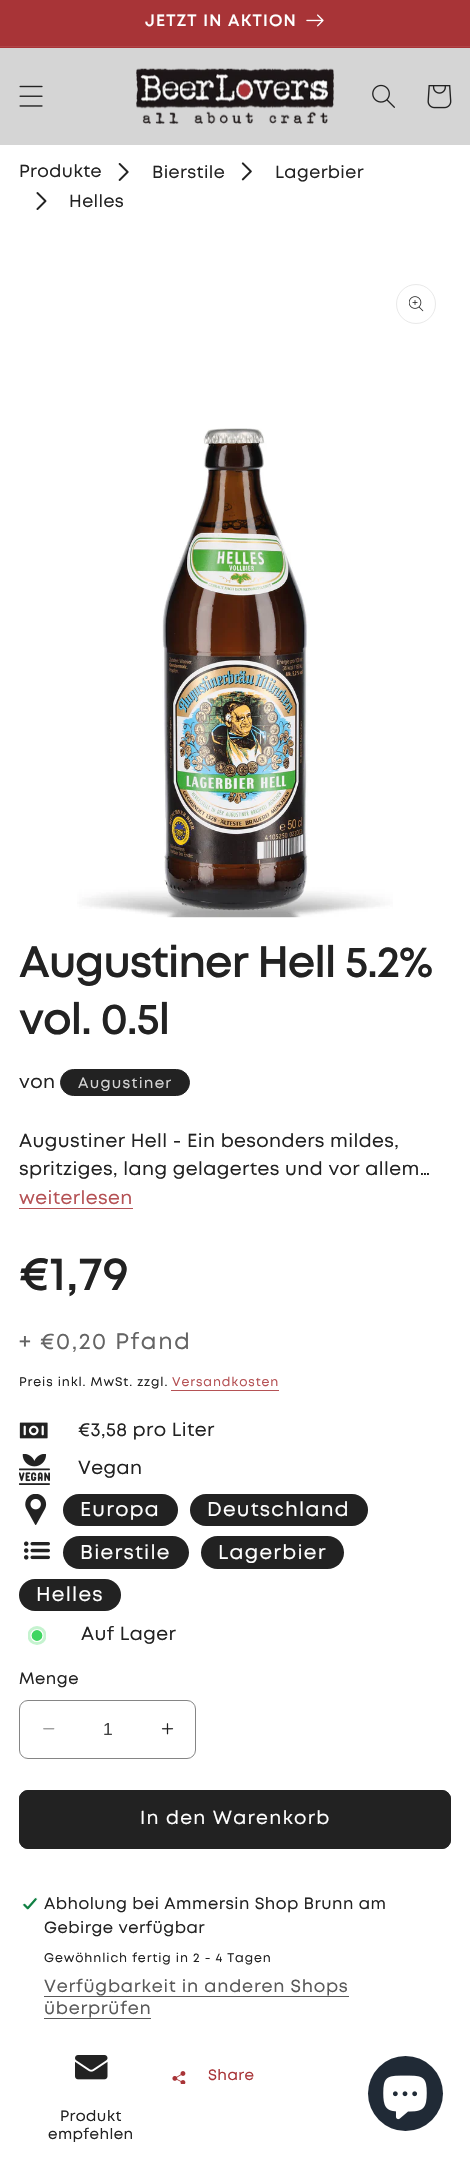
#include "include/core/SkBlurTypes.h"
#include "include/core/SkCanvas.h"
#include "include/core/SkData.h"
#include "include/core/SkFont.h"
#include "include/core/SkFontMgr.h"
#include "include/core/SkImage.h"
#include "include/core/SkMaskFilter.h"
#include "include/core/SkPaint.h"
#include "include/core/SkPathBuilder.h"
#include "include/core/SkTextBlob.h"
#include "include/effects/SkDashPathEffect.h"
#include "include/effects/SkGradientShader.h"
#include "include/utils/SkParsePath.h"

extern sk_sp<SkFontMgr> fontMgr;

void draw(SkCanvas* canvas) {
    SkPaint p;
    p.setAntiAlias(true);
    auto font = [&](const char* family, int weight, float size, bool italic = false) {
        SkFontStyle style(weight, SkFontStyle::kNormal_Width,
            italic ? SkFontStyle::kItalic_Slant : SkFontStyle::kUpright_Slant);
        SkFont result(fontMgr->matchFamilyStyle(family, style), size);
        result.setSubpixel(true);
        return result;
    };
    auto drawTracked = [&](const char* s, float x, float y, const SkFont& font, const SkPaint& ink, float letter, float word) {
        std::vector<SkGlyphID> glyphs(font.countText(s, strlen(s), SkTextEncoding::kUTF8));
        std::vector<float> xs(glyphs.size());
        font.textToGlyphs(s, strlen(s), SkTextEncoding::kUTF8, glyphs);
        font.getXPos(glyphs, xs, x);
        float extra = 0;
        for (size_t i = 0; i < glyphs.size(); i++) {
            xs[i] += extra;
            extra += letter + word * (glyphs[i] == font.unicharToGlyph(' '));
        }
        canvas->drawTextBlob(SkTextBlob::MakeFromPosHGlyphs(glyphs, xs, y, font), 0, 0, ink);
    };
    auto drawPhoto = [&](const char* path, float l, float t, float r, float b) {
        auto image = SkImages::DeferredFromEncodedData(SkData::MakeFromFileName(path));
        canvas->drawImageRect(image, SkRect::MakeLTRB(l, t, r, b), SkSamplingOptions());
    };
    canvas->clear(0xFFFFFFFF);
    p.setColor(0xFFA83437);
    canvas->drawRect(SkRect::MakeLTRB(0, 0, 470, 48), p);
    p.setColor(0xFFAF4447);
    canvas->drawRect(SkRect::MakeLTRB(0, 46, 470, 47), p);
    auto font1 = font("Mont", 600, 16.25f);
    p.setColor(0xFFFFFFFF);
    drawTracked("JETZT IN AKTION", 145, 26, font1, p, 1.25f, 0);
    drawPhoto("media/1.png", 306, 14, 324, 27);
    p.setColor(0xFFD5D5D5);
    canvas->drawRect(SkRect::MakeLTRB(0, 48, 470, 145), p);
    drawPhoto("media/2.png", 19, 85, 43, 107);
    drawPhoto("media/3.png", 136, 68, 334, 124);
    drawPhoto("media/4.png", 372, 84, 395, 108);
    drawPhoto("media/5.png", 427, 85, 452, 109);
    auto font2 = font("Mont", 400, 17.5f);
    p.setColor(0xFF222222);
    drawTracked("Produkte", 19, 177, font2, p, 0.4f, 0);
    drawPhoto("media/6.png", 118, 163, 129, 181);
    drawTracked("Bierstile", 152, 178, font2, p, 0.4f, 0);
    drawPhoto("media/7.png", 241, 162, 252, 181);
    drawTracked("Lagerbier", 275, 178, font2, p, 0.4f, 0);
    drawPhoto("media/8.png", 36, 192, 47, 210);
    drawTracked("Helles", 69, 207, font2, p, 0.4f, 0);
    p.setStyle(SkPaint::kStroke_Style);
    p.setStrokeWidth(1);
    p.setColor(0xFFE9E9E9);
    canvas->drawCircle(416, 304, 19.5f, p);
    drawPhoto("media/9.png", 409, 296, 424, 312);
    drawPhoto("media/10.png", 77, 428, 393, 918);
    auto font3 = font("Mont", 600, 43.75f);
    p.setStyle(SkPaint::kFill_Style);
    p.setColor(0xFF222222);
    drawTracked("Augustiner Hell 5.2%", 19, 977, font3, p, -1.25f, 0);
    drawTracked("vol. 0.5l", 19, 1034, font3, p, -1.25f, 0);
    auto font4 = font("Mont", 400, 18.75f);
    drawTracked("von", 19, 1088, font4, p, 0.4f, 0);
    canvas->drawRoundRect(SkRect::MakeLTRB(60.5f, 1069.5f, 189.5f, 1095.5f), 13, 13, p);
    p.setStyle(SkPaint::kStroke_Style);
    canvas->drawRoundRect(SkRect::MakeLTRB(60.5f, 1069.5f, 189.5f, 1095.5f), 13, 13, p);
    auto font5 = font("Mont", 400, 15);
    p.setStyle(SkPaint::kFill_Style);
    p.setColor(0xFFD5D5D5);
    drawTracked("Augustiner", 78, 1088, font5, p, 1.25f, 0);
    p.setColor(0xFF222222);
    drawTracked("Augustiner Hell - Ein besonders mildes,", 19, 1147, font4, p, 0.4f, 0);
    drawTracked("spritziges, lang gelagertes und vor allem…", 19, 1175, font4, p, 0.4f, 0);
    p.setColor(0xFFB55255);
    drawTracked("weiterlesen", 19, 1204, font4, p, 0.4f, 0);
    canvas->drawRect(SkRect::MakeLTRB(19, 1208, 133, 1209), p);
    auto font6 = font("Mont", 700, 45);
    p.setColor(0xFF222222);
    drawTracked("€1,79", 19, 1290, font6, p, 1.6f, 0);
    auto font7 = font("Mont", 400, 22.5f);
    p.setColor(0xFF646464);
    drawTracked("+ €0,20 Pfand", 19, 1349, font7, p, 1.6f, 0);
    auto font8 = font("Mont", 400, 12.5f);
    p.setColor(0xFF222222);
    drawTracked("Preis inkl. MwSt. zzgl.", 19, 1386, font8, p, 0.9f, 0);
    p.setColor(0xFFB55255);
    drawTracked("Versandkosten", 172, 1386, font8, p, 0.9f, 0);
    canvas->drawRect(SkRect::MakeLTRB(171, 1390, 279, 1391), p);
    drawPhoto("media/11.png", 19, 1422, 48, 1439);
    p.setColor(0xFF222222);
    drawTracked("€3,58 pro Liter", 78, 1436, font4, p, 0.4f, 0);
    drawPhoto("media/12.png", 19, 1454, 50, 1485);
    drawTracked("Vegan", 78, 1474, font4, p, 0.4f, 0);
    drawPhoto("media/13.png", 25, 1494, 47, 1525);
    canvas->drawRoundRect(SkRect::MakeLTRB(63, 1494, 178, 1526), 16, 16, p);
    p.setStyle(SkPaint::kStroke_Style);
    p.setColor(0x1A222222);
    canvas->drawRoundRect(SkRect::MakeLTRB(63.5f, 1494.5f, 177.5f, 1525.5f), 15.5f, 15.5f, p);
    auto font9 = font("Mont", 400, 20);
    p.setStyle(SkPaint::kFill_Style);
    p.setColor(0xFFFFFFFF);
    drawTracked("Europa", 80, 1516, font9, p, 1.25f, 0);
    p.setColor(0xFF222222);
    canvas->drawRoundRect(SkRect::MakeLTRB(190, 1494, 368, 1526), 16, 16, p);
    p.setStyle(SkPaint::kStroke_Style);
    p.setColor(0x1A222222);
    canvas->drawRoundRect(SkRect::MakeLTRB(190.5f, 1494.5f, 367.5f, 1525.5f), 15.5f, 15.5f, p);
    p.setStyle(SkPaint::kFill_Style);
    p.setColor(0xFFFFFFFF);
    drawTracked("Deutschland", 207, 1516, font9, p, 1.25f, 0);
    drawPhoto("media/14.png", 24, 1541, 50, 1560);
    p.setColor(0xFF222222);
    canvas->drawRoundRect(SkRect::MakeLTRB(63, 1536, 189, 1569), 16.5f, 16.5f, p);
    p.setStyle(SkPaint::kStroke_Style);
    p.setColor(0x1A222222);
    canvas->drawRoundRect(SkRect::MakeLTRB(63.5f, 1536.5f, 188.5f, 1568.5f), 16, 16, p);
    p.setStyle(SkPaint::kFill_Style);
    p.setColor(0xFFFFFFFF);
    drawTracked("Bierstile", 80, 1559, font9, p, 1.25f, 0);
    p.setColor(0xFF222222);
    canvas->drawRoundRect(SkRect::MakeLTRB(201, 1536, 344, 1569), 16.5f, 16.5f, p);
    p.setStyle(SkPaint::kStroke_Style);
    p.setColor(0x1A222222);
    canvas->drawRoundRect(SkRect::MakeLTRB(201.5f, 1536.5f, 343.5f, 1568.5f), 16, 16, p);
    p.setStyle(SkPaint::kFill_Style);
    p.setColor(0xFFFFFFFF);
    drawTracked("Lagerbier", 218, 1559, font9, p, 1.25f, 0);
    p.setColor(0xFF222222);
    canvas->drawRoundRect(SkRect::MakeLTRB(19, 1579, 121, 1611), 16, 16, p);
    p.setStyle(SkPaint::kStroke_Style);
    p.setColor(0x1A222222);
    canvas->drawRoundRect(SkRect::MakeLTRB(19.5f, 1579.5f, 120.5f, 1610.5f), 15.5f, 15.5f, p);
    p.setStyle(SkPaint::kFill_Style);
    p.setColor(0xFFFFFFFF);
    drawTracked("Helles", 36, 1601, font9, p, 1.25f, 0);
    canvas->save();
    canvas->clipRect(SkRect::MakeLTRB(28, 1626, 46, 1645));
    p.setColor(0xFFC5F3CF);
    canvas->drawCircle(37, 1635.5f, 9.5f, p);
    canvas->restore();
    p.setColor(0xFF3ED660);
    canvas->drawCircle(37, 1635.5f, 6, p);
    p.setStyle(SkPaint::kStroke_Style);
    p.setStrokeWidth(1.2f);
    p.setColor(0xFFFFFFFF);
    canvas->drawCircle(37, 1635.5f, 6, p);
    p.setStyle(SkPaint::kFill_Style);
    p.setColor(0xFF222222);
    drawTracked("Auf Lager", 81, 1640, font4, p, 0.4f, 0);
    auto font10 = font("Mont", 400, 16.25f);
    drawTracked("Menge", 19, 1684, font10, p, 0.5f, 0);
    drawPhoto("media/15.png", 43, 1728, 55, 1730);
    drawPhoto("media/16.png", 161, 1723, 174, 1735);
    p.setStyle(SkPaint::kStroke_Style);
    p.setStrokeWidth(1);
    p.setColor(0xFF858585);
    canvas->drawRoundRect(SkRect::MakeLTRB(19.5f, 1700.5f, 195.5f, 1758.5f), 8.5f, 8.5f, p);
    auto font11 = font("Liberation Sans", 400, 17.5f);
    p.setStyle(SkPaint::kFill_Style);
    p.setColor(0xFF434343);
    canvas->drawString("1", 103, 1735, font11, p);
    p.setColor(0xFF222222);
    canvas->drawRoundRect(SkRect::MakeLTRB(19, 1790, 451, 1849), 9, 9, p);
    p.setStyle(SkPaint::kStroke_Style);
    canvas->drawRoundRect(SkRect::MakeLTRB(19.5f, 1790.5f, 450.5f, 1848.5f), 8.5f, 8.5f, p);
    p.setStyle(SkPaint::kFill_Style);
    p.setColor(0xFFFFFFFF);
    drawTracked("In den Warenkorb", 140, 1824, font4, p, 1.25f, 0);
    drawPhoto("media/17.png", 22, 1897, 38, 1910);
    p.setColor(0xFF222222);
    drawTracked("Abholung bei Ammersin Shop Brunn am", 44, 1909, font10, p, 0.5f, 0);
    drawTracked("Gebirge verfügbar", 44, 1933, font10, p, 0.5f, 0);
    drawTracked("Gewöhnlich fertig in 2 - 4 Tagen", 44, 1962, font8, p, 0.9f, 0);
    p.setColor(0xFF595959);
    drawTracked("Verfügbarkeit in anderen Shops", 44, 1992, font2, p, 0.75f, 0);
    canvas->drawRect(SkRect::MakeLTRB(44, 1996, 349, 1997), p);
    drawTracked("überprüfen", 44, 2014, font2, p, 0.75f, 0);
    canvas->drawRect(SkRect::MakeLTRB(44, 2018, 151, 2019), p);
    drawPhoto("media/18.png", 172, 2071, 186, 2084);
    p.setColor(0xFFA83437);
    drawTracked("Share", 208, 2080, font5, p, 0.4f, 0);
    drawPhoto("media/19.png", 75, 2055, 108, 2080);
    p.setColor(0xFF222222);
    drawTracked("Produkt", 60, 2121, font5, p, 0.4f, 0);
    drawTracked("empfehlen", 48, 2139, font5, p, 0.4f, 0);
    p.setColor(0xFF202A36);
    canvas->drawCircle(405.5f, 2093.5f, 37.5f, p);
    drawPhoto("media/20.png", 383, 2075, 427, 2120);
}
